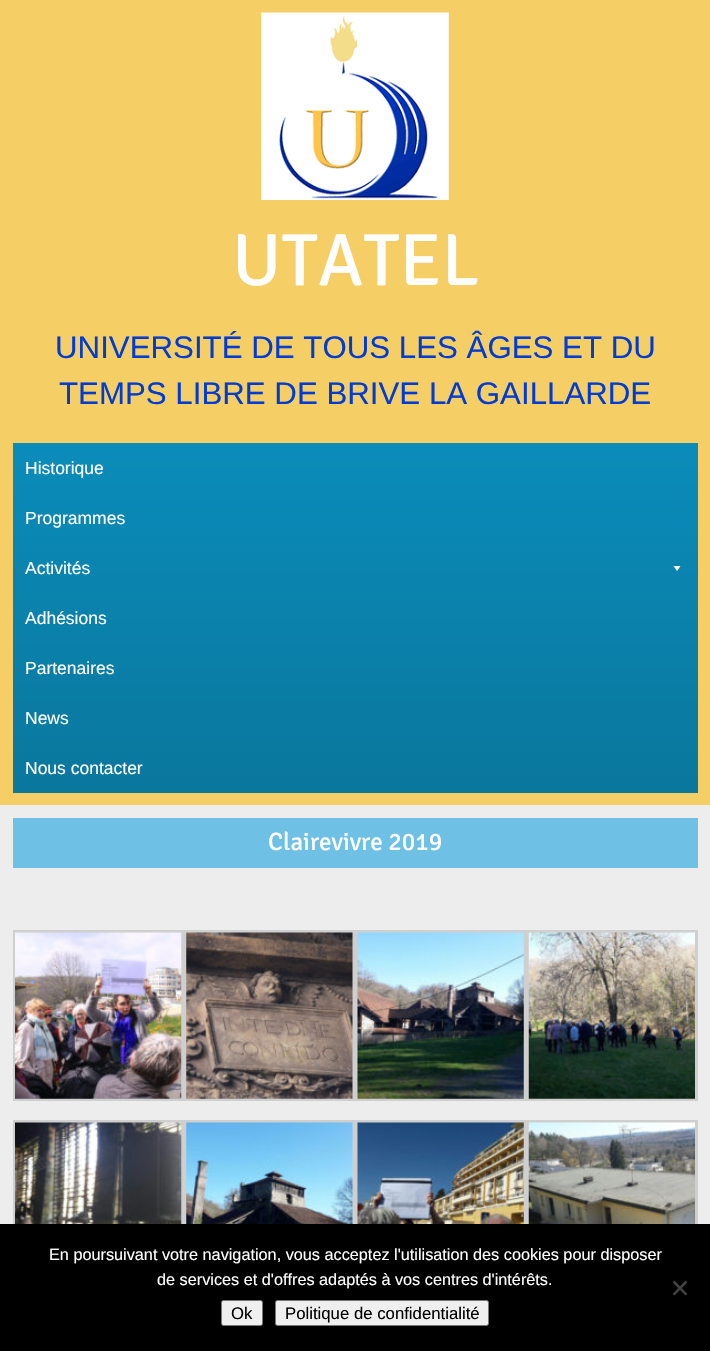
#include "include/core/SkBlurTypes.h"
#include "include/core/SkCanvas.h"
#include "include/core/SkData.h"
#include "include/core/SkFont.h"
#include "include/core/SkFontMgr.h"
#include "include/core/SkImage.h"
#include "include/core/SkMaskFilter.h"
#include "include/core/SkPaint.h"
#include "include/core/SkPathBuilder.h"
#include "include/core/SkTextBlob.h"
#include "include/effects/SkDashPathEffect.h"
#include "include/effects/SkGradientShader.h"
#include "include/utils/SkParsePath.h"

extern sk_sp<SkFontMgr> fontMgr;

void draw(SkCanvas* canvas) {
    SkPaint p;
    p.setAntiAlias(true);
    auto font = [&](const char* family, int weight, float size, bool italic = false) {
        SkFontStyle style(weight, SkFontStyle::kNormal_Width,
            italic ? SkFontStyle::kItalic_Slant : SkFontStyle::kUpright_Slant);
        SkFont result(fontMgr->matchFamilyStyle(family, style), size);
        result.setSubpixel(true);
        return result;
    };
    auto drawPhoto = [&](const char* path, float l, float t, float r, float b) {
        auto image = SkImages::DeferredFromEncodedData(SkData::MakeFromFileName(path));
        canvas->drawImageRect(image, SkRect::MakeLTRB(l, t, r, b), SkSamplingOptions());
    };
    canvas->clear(0xFFF5CF66);
    drawPhoto("media/1.png", 261, 12, 449, 200);
    auto font1 = font("Signika", 400, 74);
    p.setColor(0xFFFFFFFF);
    canvas->drawString("UTATEL", 232, 285, font1, p);
    auto font2 = font("Liberation Sans", 400, 31.25f);
    p.setColor(0xFF003CD1);
    canvas->drawString("UNIVERSITÉ DE TOUS LES ÂGES ET DU", 55, 358, font2, p);
    canvas->drawString("TEMPS LIBRE DE BRIVE LA GAILLARDE", 59, 404, font2, p);
    {
        const SkColor colors[] = {0xFF0A8CBA, 0xFF0A779D};
        const float stops[] = {0, 1};
        const SkPoint ends[] = {{355, 443}, {355, 793}};
        p.setShader(SkGradientShader::MakeLinear(ends, colors, stops, 2, SkTileMode::kClamp));
        p.setAlpha(255);
    }
    canvas->drawRect(SkRect::MakeLTRB(13, 443, 698, 793), p);
    auto font3 = font("Liberation Sans", 400, 17.5f);
    p.setShader(nullptr);
    p.setColor(0xFFFFFFFF);
    {
        const struct { const char* s; float x, y; } items[] = {
            {"Historique", 25, 474},
            {"Programmes", 25, 524},
            {"Activités", 25, 574},
        };
        for (auto [s, x, y] : items) {
            canvas->drawString(s, x, y, font3, p);
        }
    }
    canvas->drawPath(SkPathBuilder().moveTo(680.5f, 566).lineTo(677, 571).lineTo(673.5f, 566).close().detach(), p);
    {
        const struct { const char* s; float x, y; } items[] = {
            {"Adhésions", 25, 624},
            {"Partenaires", 25, 674},
            {"News", 25, 724},
            {"Nous contacter", 25, 774},
        };
        for (auto [s, x, y] : items) {
            canvas->drawString(s, x, y, font3, p);
        }
    }
    p.setColor(0xFFEDEDED);
    canvas->drawRect(SkRect::MakeLTRB(0, 805, 710, 1224), p);
    p.setColor(0xFF6EC1E4);
    canvas->drawRect(SkRect::MakeLTRB(13, 818, 698, 868), p);
    auto font4 = font("Signika", 400, 25);
    p.setColor(0xFFFFFFFF);
    canvas->drawString("Clairevivre 2019", 268, 850, font4, p);
    p.setStyle(SkPaint::kStroke_Style);
    p.setStrokeWidth(3);
    p.setColor(0xFFCFCFCF);
    canvas->drawRect(SkRect::MakeLTRB(14.5f, 931.5f, 182.5f, 1099.5f), p);
    drawPhoto("media/2.png", 15, 932, 182, 1099);
    canvas->drawRect(SkRect::MakeLTRB(185.5f, 931.5f, 353.5f, 1099.5f), p);
    drawPhoto("media/3.png", 186, 932, 353, 1099);
    canvas->drawRect(SkRect::MakeLTRB(356.5f, 931.5f, 524.5f, 1099.5f), p);
    drawPhoto("media/4.png", 357, 932, 524, 1099);
    canvas->drawRect(SkRect::MakeLTRB(527.5f, 931.5f, 696.5f, 1099.5f), p);
    drawPhoto("media/5.png", 528, 932, 695, 1099);
    canvas->drawRect(SkRect::MakeLTRB(14.5f, 1121.5f, 182.5f, 1289.5f), p);
    drawPhoto("media/6.png", 15, 1122, 182, 1224);
    canvas->drawRect(SkRect::MakeLTRB(185.5f, 1121.5f, 353.5f, 1289.5f), p);
    drawPhoto("media/7.png", 186, 1122, 353, 1224);
    canvas->drawRect(SkRect::MakeLTRB(356.5f, 1121.5f, 524.5f, 1289.5f), p);
    drawPhoto("media/8.png", 357, 1122, 524, 1224);
    canvas->drawRect(SkRect::MakeLTRB(527.5f, 1121.5f, 696.5f, 1289.5f), p);
    drawPhoto("media/9.png", 528, 1122, 695, 1224);
    p.setStyle(SkPaint::kFill_Style);
    p.setColor(0xFF000000);
    canvas->drawRect(SkRect::MakeLTRB(0, 1224, 710, 1351), p);
    auto font5 = font("Liberation Sans", 400, 16.25f);
    p.setColor(0xFFFFFFFF);
    canvas->drawString("En poursuivant votre navigation, vous acceptez l'utilisation des cookies pour disposer", 49, 1260, font5, p);
    canvas->drawString("de services et d'offres adaptés à vos centres d'intérêts.", 157, 1285, font5, p);
    p.setColor(0xFF404040);
    canvas->drawPath(SkPathBuilder().moveTo(685.5f, 1280.5f).lineTo(687.5f, 1282.5f).lineTo(674.5f, 1295.5f).lineTo(672.5f, 1294).close().detach(), p);
    canvas->drawPath(SkPathBuilder().moveTo(672.5f, 1282.5f).lineTo(674.5f, 1280.5f).lineTo(687.5f, 1294).lineTo(685.5f, 1295.5f).close().detach(), p);
    p.setColor(0xFFEFEFEF);
    canvas->drawRoundRect(SkRect::MakeLTRB(221.5f, 1300.5f, 262.5f, 1325.5f), 2, 2, p);
    p.setStyle(SkPaint::kStroke_Style);
    p.setStrokeWidth(1);
    p.setColor(0xFF767676);
    canvas->drawRoundRect(SkRect::MakeLTRB(221.5f, 1300.5f, 262.5f, 1325.5f), 2, 2, p);
    auto font6 = font("Liberation Sans", 400, 16.75f);
    p.setStyle(SkPaint::kFill_Style);
    p.setColor(0xFF000000);
    canvas->drawString("Ok", 231, 1319, font6, p);
    p.setColor(0xFFEFEFEF);
    canvas->drawRoundRect(SkRect::MakeLTRB(275.5f, 1300.5f, 488.5f, 1325.5f), 2, 2, p);
    p.setStyle(SkPaint::kStroke_Style);
    p.setColor(0xFF767676);
    canvas->drawRoundRect(SkRect::MakeLTRB(275.5f, 1300.5f, 488.5f, 1325.5f), 2, 2, p);
    p.setStyle(SkPaint::kFill_Style);
    p.setColor(0xFF000000);
    canvas->drawString("Politique de confidentialité", 285, 1319, font6, p);
}
